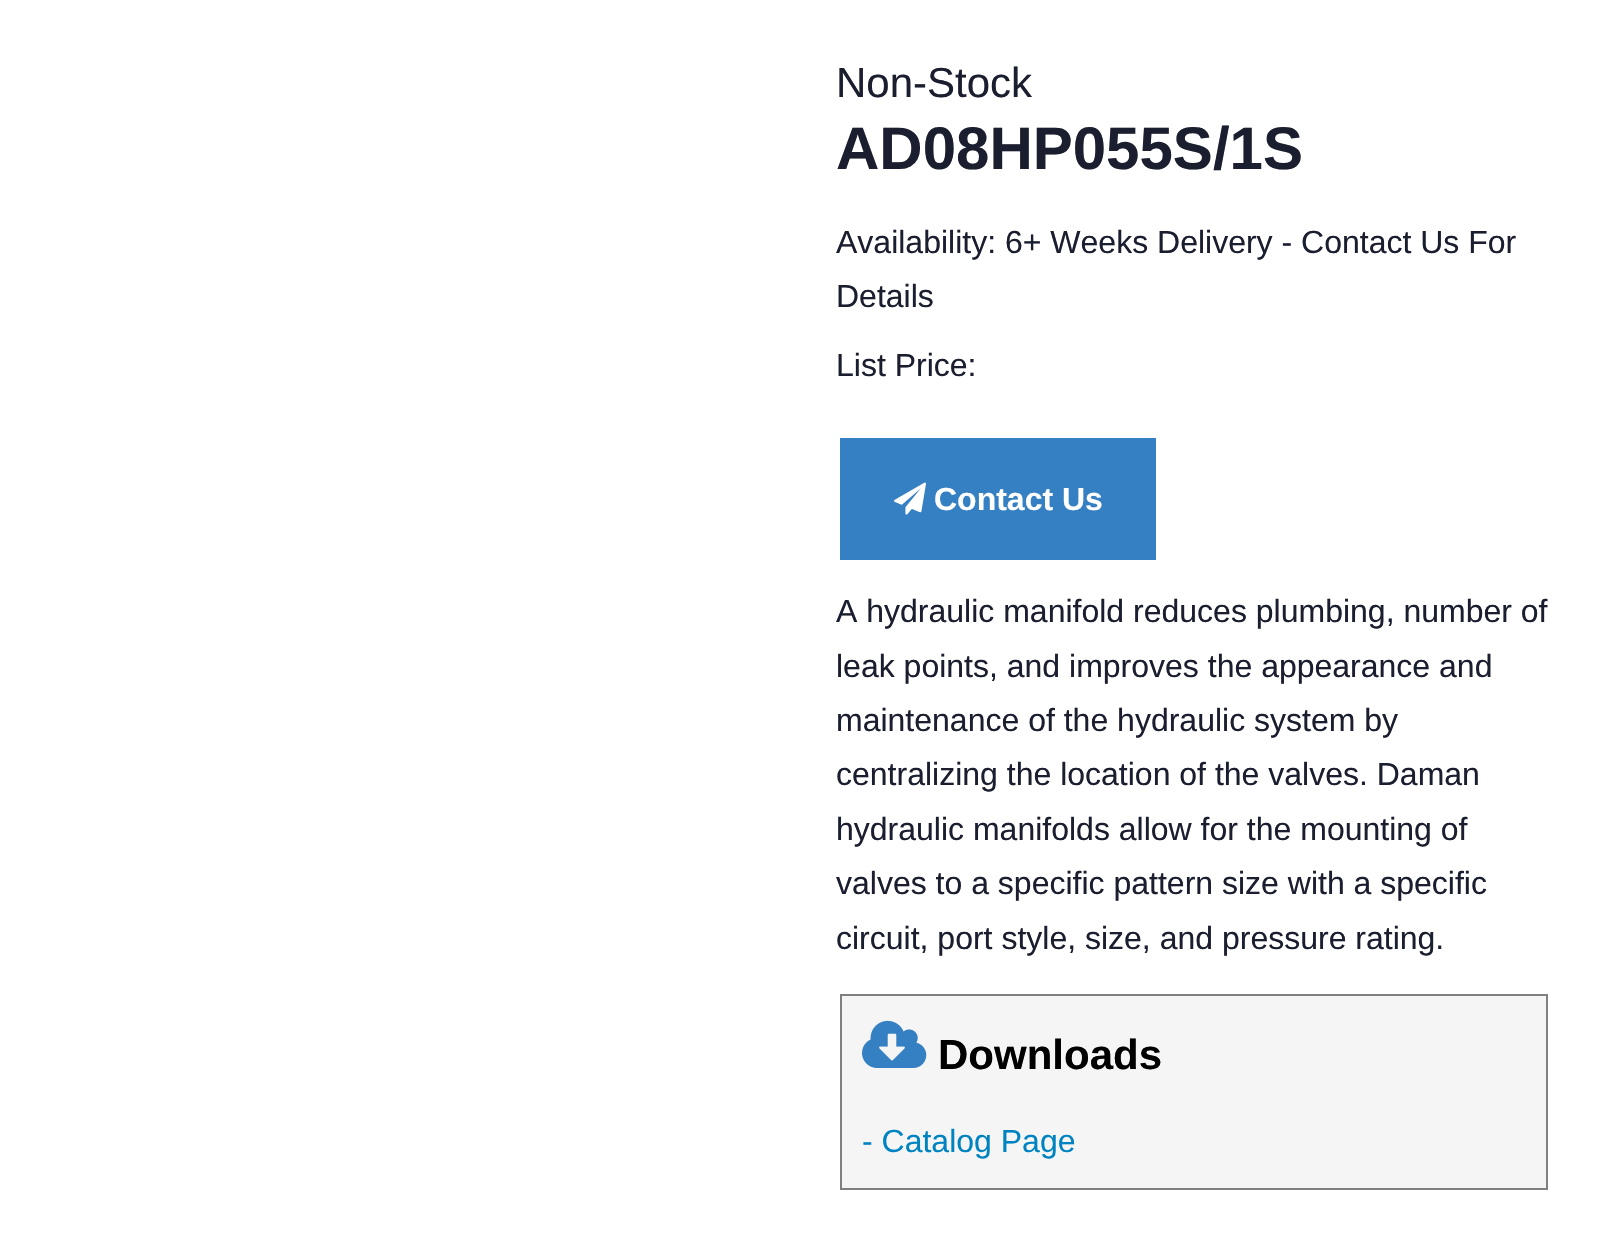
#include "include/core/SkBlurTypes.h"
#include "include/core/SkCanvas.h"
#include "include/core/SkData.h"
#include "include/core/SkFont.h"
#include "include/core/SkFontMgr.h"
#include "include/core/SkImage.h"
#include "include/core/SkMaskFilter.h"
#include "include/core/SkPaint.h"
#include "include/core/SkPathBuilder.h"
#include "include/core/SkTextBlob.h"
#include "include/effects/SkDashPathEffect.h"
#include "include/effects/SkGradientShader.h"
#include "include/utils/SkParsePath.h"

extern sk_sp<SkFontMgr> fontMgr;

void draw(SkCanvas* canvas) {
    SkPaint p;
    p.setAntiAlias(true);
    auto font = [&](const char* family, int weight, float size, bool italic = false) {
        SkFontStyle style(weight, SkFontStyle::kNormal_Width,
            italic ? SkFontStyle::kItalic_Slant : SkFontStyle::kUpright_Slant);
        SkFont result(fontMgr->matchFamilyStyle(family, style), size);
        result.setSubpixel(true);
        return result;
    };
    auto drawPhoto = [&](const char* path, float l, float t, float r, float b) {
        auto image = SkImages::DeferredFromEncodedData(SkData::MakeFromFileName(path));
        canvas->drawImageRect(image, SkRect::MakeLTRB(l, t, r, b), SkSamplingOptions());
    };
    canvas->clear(0xFFFFFFFF);
    auto font1 = font("Liberation Sans", 400, 42);
    p.setColor(0xFF1B1E2F);
    canvas->drawString("Non-Stock", 836, 97, font1, p);
    auto font2 = font("Liberation Sans", 700, 60);
    canvas->drawString("AD08HP055S/1S", 836, 169, font2, p);
    auto font3 = font("Liberation Sans", 400, 32);
    {
        const struct { const char* s; float x, y; } items[] = {
            {"Availability: 6+ Weeks Delivery - Contact Us For", 836, 253},
            {"Details", 836, 307},
            {"List Price:", 836, 376},
        };
        for (auto [s, x, y] : items) {
            canvas->drawString(s, x, y, font3, p);
        }
    }
    p.setColor(0xFF3580C2);
    canvas->drawRect(SkRect::MakeLTRB(840, 438, 1156, 560), p);
    drawPhoto("media/1.png", 894, 482, 926, 515);
    auto font4 = font("Liberation Sans", 700, 32);
    p.setColor(0xFFFFFFFF);
    canvas->drawString("Contact Us", 934, 510, font4, p);
    p.setColor(0xFF1B1E2F);
    {
        const struct { const char* s; float x, y; } items[] = {
            {"A hydraulic manifold reduces plumbing, number of", 836, 622},
            {"leak points, and improves the appearance and", 836, 677},
            {"maintenance of the hydraulic system by", 836, 731},
            {"centralizing the location of the valves. Daman", 836, 785},
            {"hydraulic manifolds allow for the mounting of", 836, 840},
            {"valves to a specific pattern size with a specific", 836, 894},
            {"circuit, port style, size, and pressure rating.", 836, 949},
        };
        for (auto [s, x, y] : items) {
            canvas->drawString(s, x, y, font3, p);
        }
    }
    p.setColor(0xFFF5F5F5);
    canvas->drawRect(SkRect::MakeLTRB(841, 995, 1547, 1189), p);
    p.setStyle(SkPaint::kStroke_Style);
    p.setStrokeWidth(2);
    p.setColor(0xFF808080);
    canvas->drawRect(SkRect::MakeLTRB(841, 995, 1547, 1189), p);
    drawPhoto("media/2.png", 862, 1020, 927, 1068);
    auto font5 = font("Liberation Sans", 700, 42);
    p.setStyle(SkPaint::kFill_Style);
    p.setColor(0xFF000000);
    canvas->drawString("Downloads", 938, 1069, font5, p);
    p.setColor(0xFF0083C1);
    canvas->drawString("- Catalog Page", 862, 1152, font3, p);
}
